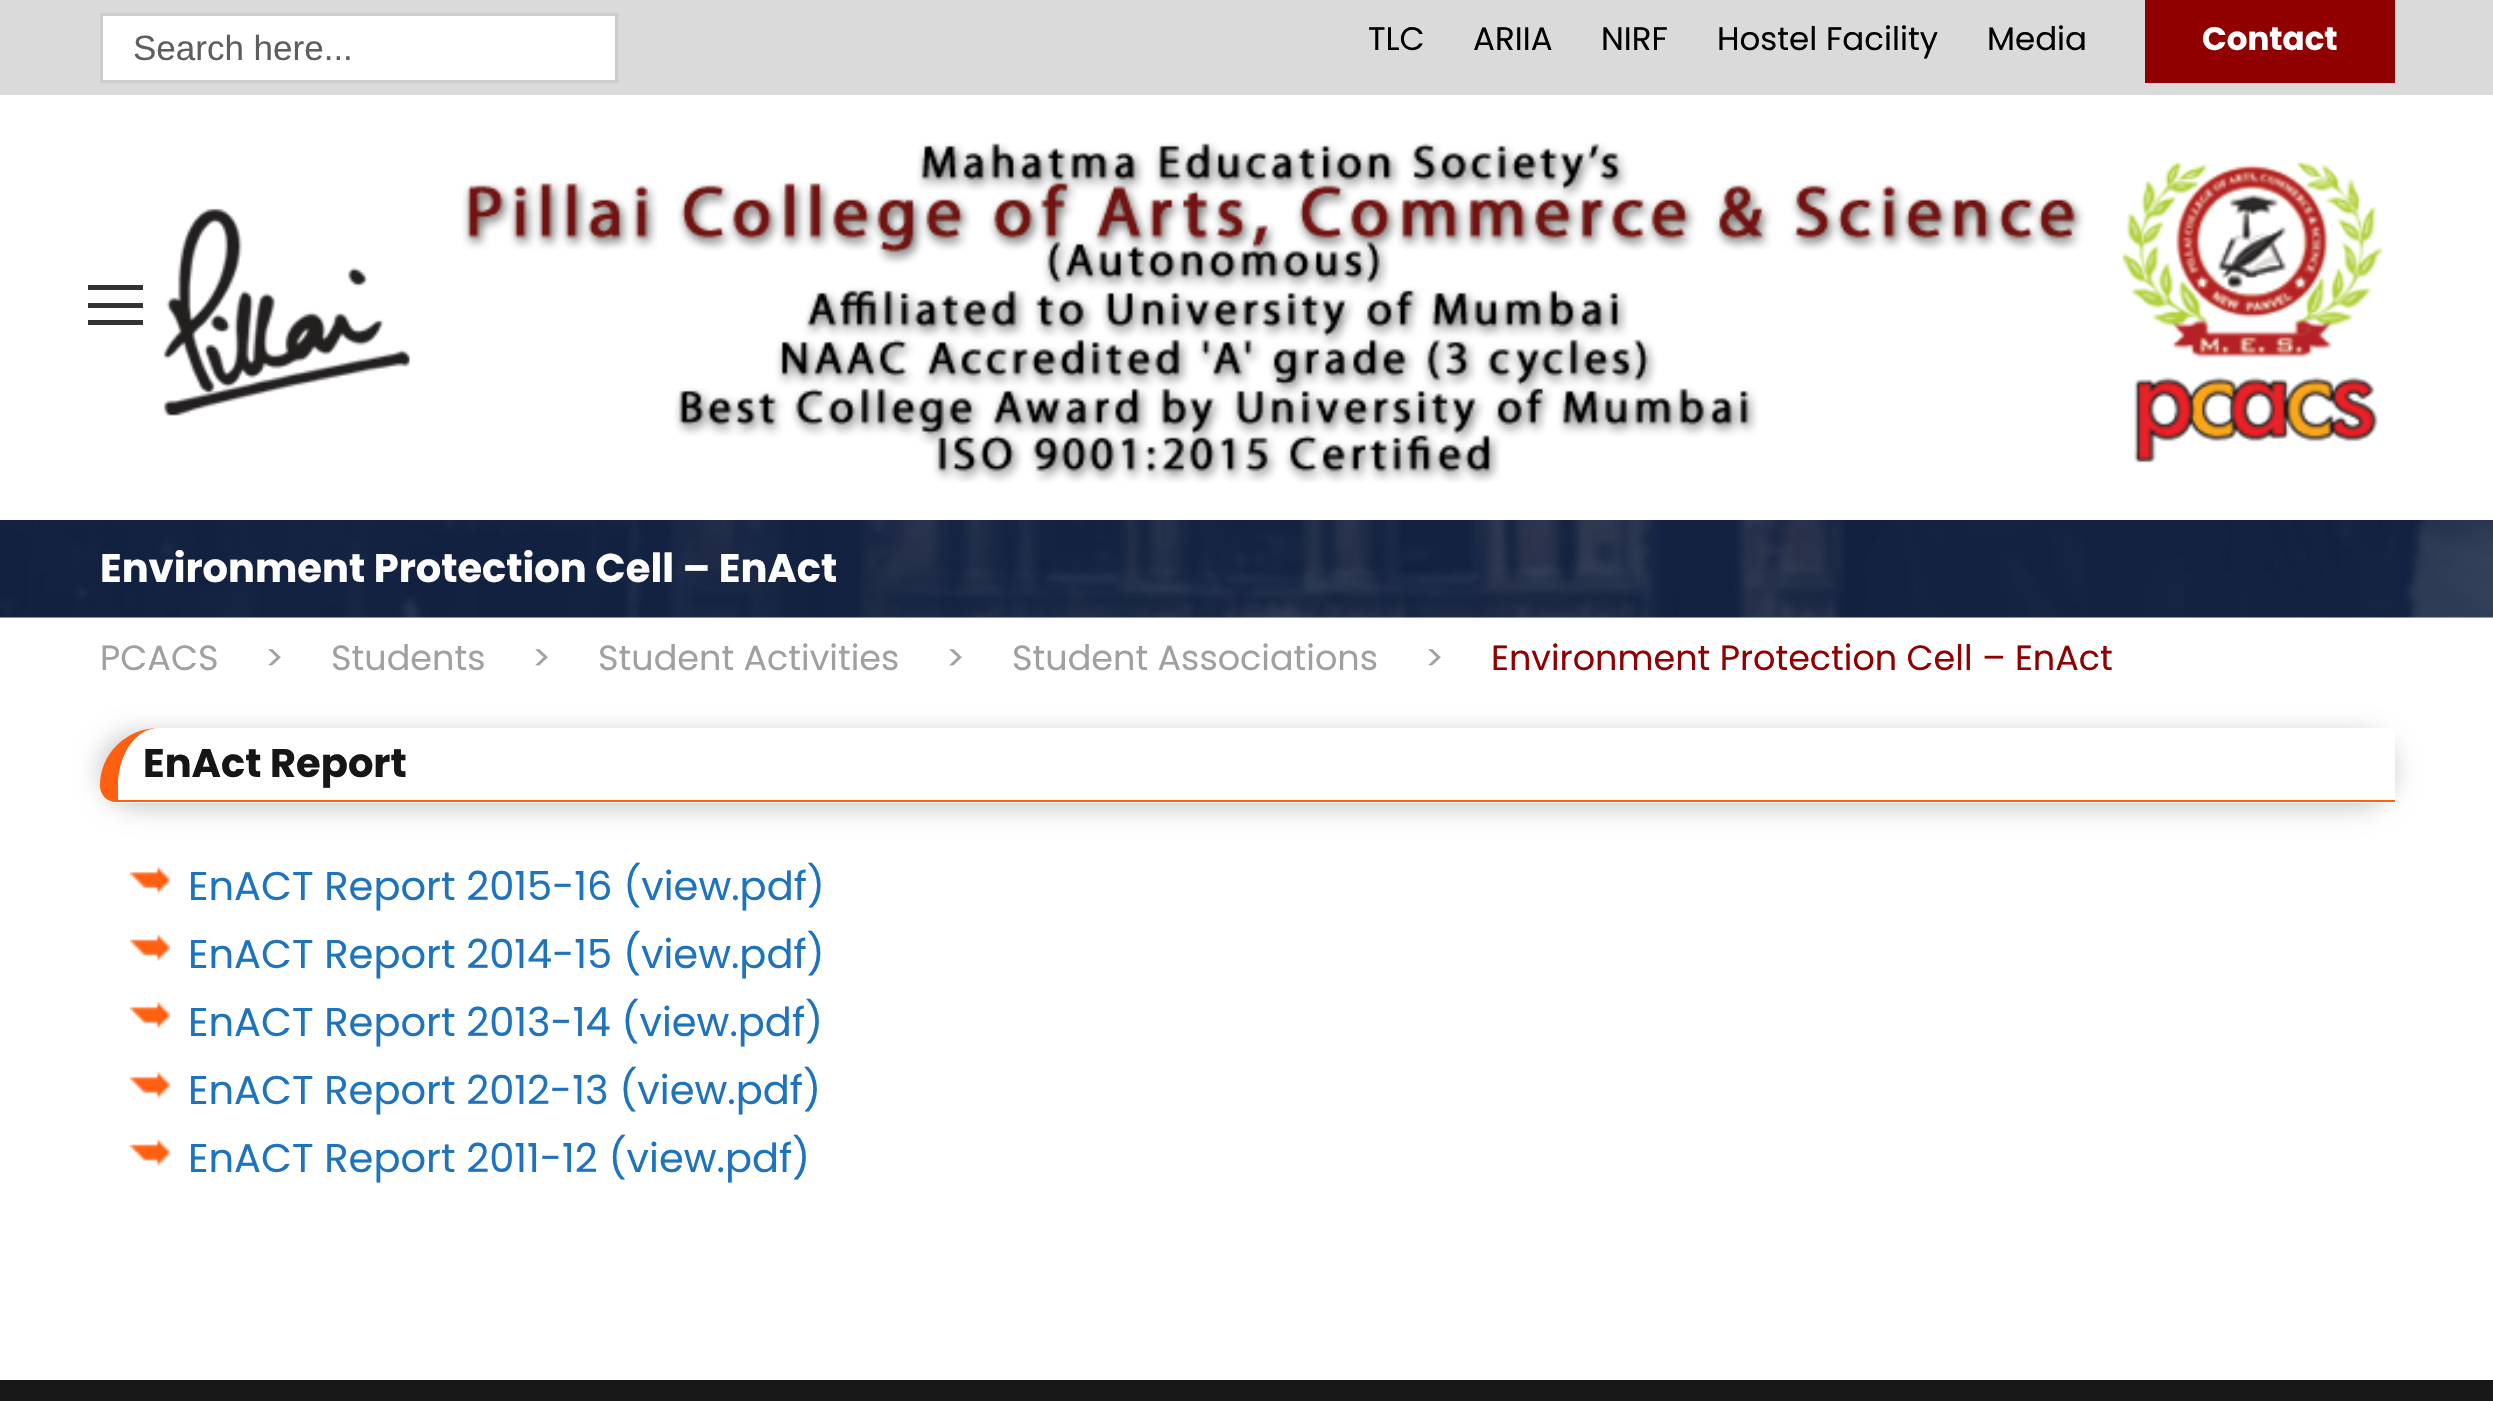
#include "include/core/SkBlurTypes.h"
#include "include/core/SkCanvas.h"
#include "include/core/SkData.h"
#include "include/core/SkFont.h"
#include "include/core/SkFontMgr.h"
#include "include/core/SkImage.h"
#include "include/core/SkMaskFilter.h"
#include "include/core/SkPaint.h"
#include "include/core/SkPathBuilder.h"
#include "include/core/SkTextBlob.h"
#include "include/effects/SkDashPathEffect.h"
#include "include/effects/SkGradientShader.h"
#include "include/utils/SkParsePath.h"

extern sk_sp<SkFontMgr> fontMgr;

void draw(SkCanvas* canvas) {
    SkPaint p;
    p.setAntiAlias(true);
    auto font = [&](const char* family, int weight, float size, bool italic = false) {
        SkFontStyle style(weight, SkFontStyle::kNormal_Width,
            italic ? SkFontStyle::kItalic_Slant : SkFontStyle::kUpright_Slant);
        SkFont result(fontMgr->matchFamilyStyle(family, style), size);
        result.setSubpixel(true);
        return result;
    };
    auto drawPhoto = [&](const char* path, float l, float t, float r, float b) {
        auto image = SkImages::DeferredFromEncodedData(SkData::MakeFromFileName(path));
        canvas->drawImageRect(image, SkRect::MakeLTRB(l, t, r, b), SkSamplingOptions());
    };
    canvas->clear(0xFFFFFFFF);
    p.setColor(0xFFDBDADA);
    canvas->drawRect(SkRect::MakeLTRB(0, 0, 2493, 95), p);
    p.setColor(0xFFFFFFFF);
    canvas->drawRect(SkRect::MakeLTRB(101.5f, 14.5f, 616.5f, 81.5f), p);
    p.setStyle(SkPaint::kStroke_Style);
    p.setStrokeWidth(3);
    p.setColor(0xFFCCCCCC);
    canvas->drawRect(SkRect::MakeLTRB(101.5f, 14.5f, 616.5f, 81.5f), p);
    auto font1 = font("Liberation Sans", 400, 35);
    p.setStyle(SkPaint::kFill_Style);
    p.setColor(0xFF5E5E5E);
    canvas->drawString("Search here...", 133, 60, font1, p);
    auto font2 = font("Poppins", 400, 32.5f);
    p.setColor(0xFF000000);
    {
        const struct { const char* s; float x, y; } items[] = {
            {"TLC", 1368, 50},
            {"ARIIA", 1473, 50},
            {"NIRF", 1601, 50},
            {"Hostel Facility", 1717, 50},
            {"Media", 1987, 50},
        };
        for (auto [s, x, y] : items) {
            canvas->drawString(s, x, y, font2, p);
        }
    }
    p.setColor(0xFF910000);
    canvas->drawRect(SkRect::MakeLTRB(2145, 0, 2395, 83), p);
    auto font3 = font("Poppins", 700, 32.5f);
    p.setColor(0xFFFFFFFF);
    canvas->drawString("Contact", 2202, 50, font3, p);
    {
        const struct { float l, t, r, b; SkColor color; } items[] = {
            {88, 285, 143, 290, 0xFF333333},
            {88, 303, 143, 308, 0xFF333333},
            {88, 320, 143, 325, 0xFF333333},
        };
        for (auto [l, t, r, b, color] : items) {
            p.setColor(color);
            canvas->drawRect(SkRect::MakeLTRB(l, t, r, b), p);
        }
    }
    drawPhoto("media/1.png", 163, 142, 2383, 483);
    drawPhoto("media/2.png", 0, 520, 2493, 618);
    auto font4 = font("Poppins", 700, 40);
    p.setColor(0xFFFFFFFF);
    canvas->drawString("Environment Protection Cell – EnAct", 100, 582, font4, p);
    auto font5 = font("Poppins", 400, 35);
    p.setColor(0xFFA0A0A0);
    {
        const struct { const char* s; float x, y; } items[] = {
            {"PCACS", 100, 670},
            {">", 265, 670},
            {"Students", 331, 670},
            {">", 532, 670},
            {"Student Activities", 598, 670},
            {">", 946, 670},
            {"Student Associations", 1012, 670},
            {">", 1425, 670},
        };
        for (auto [s, x, y] : items) {
            canvas->drawString(s, x, y, font5, p);
        }
    }
    p.setColor(0xFF910000);
    canvas->drawString("Environment Protection Cell – EnAct", 1491, 670, font5, p);
    p.setColor(0xFFCAC9C9);
    p.setMaskFilter(SkMaskFilter::MakeBlur(kNormal_SkBlurStyle, 12.5f));
    canvas->drawRoundRect(SkRect::MakeLTRB(100, 733, 2395, 808), 60, 60, p);
    p.setMaskFilter(nullptr);
    p.setColor(0xFFFFFFFF);
    canvas->drawPath(SkPathBuilder().moveTo(160, 728).lineTo(2387, 728).cubicTo(2391.5f, 728, 2395, 731.5f, 2395, 736).lineTo(2395, 803).lineTo(115, 803).cubicTo(106.5f, 803, 100, 796.5f, 100, 788).cubicTo(100, 755, 127, 728, 160, 728).close().detach(), p);
    p.setColor(0xFFFF5F11);
    canvas->drawPath(SkPathBuilder(SkPathFillType::kEvenOdd).moveTo(159, 728).lineTo(2388, 728).cubicTo(2392, 728, 2395, 731, 2395, 735).lineTo(2395, 802).lineTo(2394, 802).lineTo(116, 802).cubicTo(107, 802, 100, 795, 100, 786).cubicTo(100, 754, 126, 728, 159, 728).close().moveTo(159, 728).lineTo(2388, 728).cubicTo(2392, 728, 2395, 731, 2395, 735).lineTo(2395, 800).lineTo(118, 800).lineTo(118, 786).cubicTo(118, 754, 136, 728, 159, 728).close().detach(), p);
    p.setColor(0xFF161616);
    canvas->drawString("EnAct Report", 143, 777, font4, p);
    drawPhoto("media/3.png", 130, 866, 170, 894);
    auto font6 = font("Poppins", 400, 40);
    p.setColor(0xFF1E73BE);
    canvas->drawString("EnACT Report 2015-16 (view.pdf)", 188, 900, font6, p);
    drawPhoto("media/4.png", 130, 934, 170, 961);
    canvas->drawString("EnACT Report 2014-15 (view.pdf)", 188, 968, font6, p);
    drawPhoto("media/3.png", 130, 1001, 170, 1029);
    canvas->drawString("EnACT Report 2013-14 (view.pdf)", 188, 1036, font6, p);
    drawPhoto("media/3.png", 130, 1071, 170, 1099);
    canvas->drawString("EnACT Report 2012-13 (view.pdf)", 188, 1104, font6, p);
    drawPhoto("media/4.png", 130, 1139, 170, 1166);
    canvas->drawString("EnACT Report 2011-12 (view.pdf)", 188, 1172, font6, p);
    p.setColor(0xFF181818);
    canvas->drawRect(SkRect::MakeLTRB(0, 1380, 2493, 1401), p);
}
